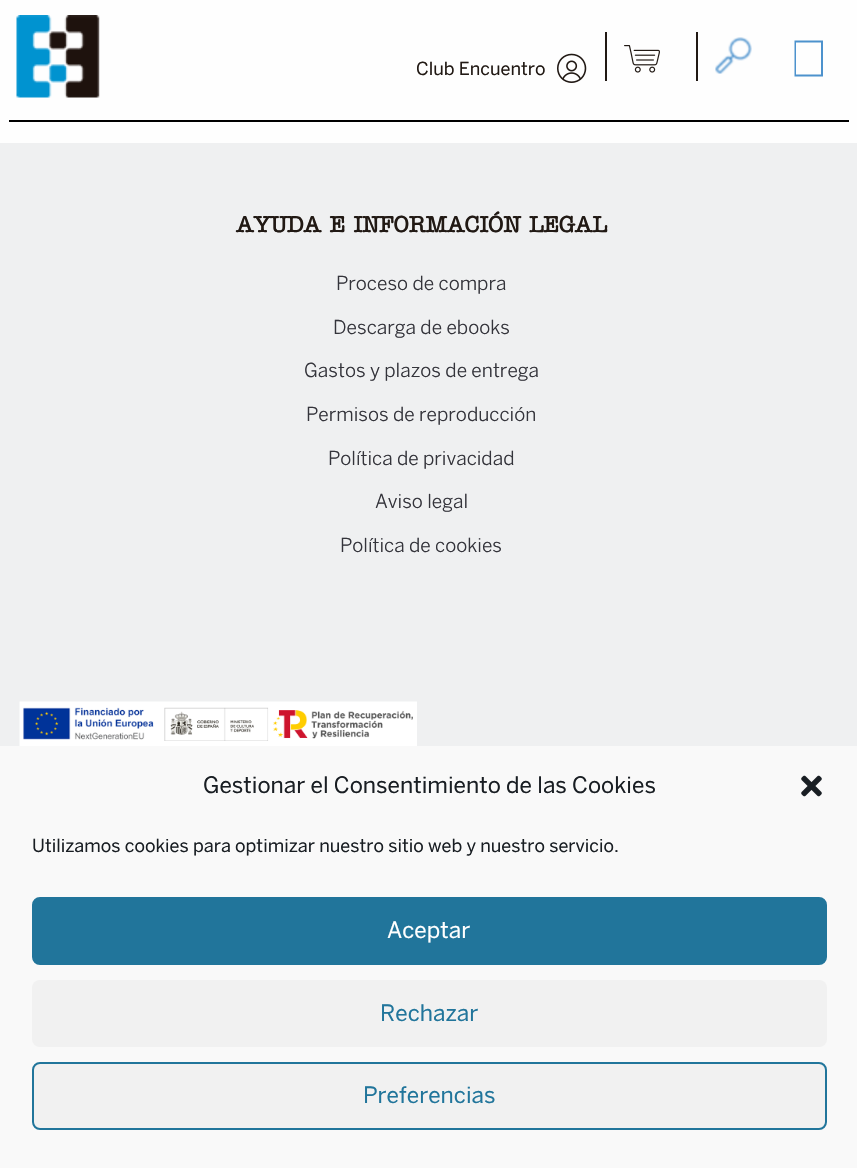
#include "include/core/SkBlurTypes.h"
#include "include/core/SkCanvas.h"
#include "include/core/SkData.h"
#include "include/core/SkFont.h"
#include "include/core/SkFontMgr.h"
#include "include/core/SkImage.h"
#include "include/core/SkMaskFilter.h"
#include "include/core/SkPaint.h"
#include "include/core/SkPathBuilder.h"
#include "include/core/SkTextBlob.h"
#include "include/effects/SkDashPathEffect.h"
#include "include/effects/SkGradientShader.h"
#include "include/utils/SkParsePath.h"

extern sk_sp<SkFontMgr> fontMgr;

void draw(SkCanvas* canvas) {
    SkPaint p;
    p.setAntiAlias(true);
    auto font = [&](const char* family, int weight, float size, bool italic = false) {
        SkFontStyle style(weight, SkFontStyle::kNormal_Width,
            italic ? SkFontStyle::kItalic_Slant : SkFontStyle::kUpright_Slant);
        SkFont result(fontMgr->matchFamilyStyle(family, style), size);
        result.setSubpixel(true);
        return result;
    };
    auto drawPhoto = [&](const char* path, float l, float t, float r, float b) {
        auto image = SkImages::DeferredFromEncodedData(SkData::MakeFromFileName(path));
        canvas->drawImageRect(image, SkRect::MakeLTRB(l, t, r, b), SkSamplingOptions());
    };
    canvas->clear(0xFFEFF0F1);
    p.setColor(0xE6FFFFFF);
    canvas->drawRect(SkRect::MakeLTRB(0, 0, 857, 143), p);
    p.setColor(0xFF000000);
    canvas->drawRect(SkRect::MakeLTRB(9, 120, 849, 122), p);
    drawPhoto("media/1.png", 16, 15, 100, 98);
    drawPhoto("media/2.png", 557, 53, 587, 83);
    auto font1 = font("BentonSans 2", 400, 18);
    p.setColor(0xFF211914);
    canvas->drawString("Club Encuentro", 416, 75, font1, p);
    canvas->drawRect(SkRect::MakeLTRB(605, 32, 607, 81), p);
    drawPhoto("media/3.png", 624, 45, 660, 73);
    canvas->drawRect(SkRect::MakeLTRB(696, 32, 698, 81), p);
    drawPhoto("media/4.png", 715, 37, 752, 74);
    p.setColor(0xFF4D92CD);
    canvas->drawPath(SkPathBuilder().moveTo(794.5f, 40.5f).lineTo(823, 40.5f).lineTo(823, 76.5f).lineTo(794.5f, 76.5f).close().moveTo(796, 42.5f).lineTo(796, 74.5f).lineTo(821, 74.5f).lineTo(821, 42.5f).close().detach(), p);
    auto font2 = font("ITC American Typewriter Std", 700, 22.5f);
    p.setColor(0xFF211914);
    canvas->drawString("AYUDA E INFORMACIÓN LEGAL", 236, 232, font2, p);
    auto font3 = font("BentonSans", 400, 19.1f);
    p.setColor(0xFF34343B);
    {
        const struct { const char* s; float x, y; } items[] = {
            {"Proceso de compra", 336, 290},
            {"Descarga de ebooks", 333, 334},
            {"Gastos y plazos de entrega", 304, 377},
            {"Permisos de reproducción", 306, 421},
            {"Política de privacidad", 328, 465},
            {"Aviso legal", 375, 508},
            {"Política de cookies", 340, 552},
        };
        for (auto [s, x, y] : items) {
            canvas->drawString(s, x, y, font3, p);
        }
    }
    drawPhoto("media/5.png", 19, 701, 417, 746);
    p.setColor(0xFFF9F9F9);
    canvas->drawRect(SkRect::MakeLTRB(0, 746, 857, 1168), p);
    auto font4 = font("BentonSans 2", 400, 22.5f);
    p.setColor(0xFF191E23);
    canvas->drawString("Gestionar el Consentimiento de las Cookies", 203, 793, font4, p);
    drawPhoto("media/6.png", 801, 775, 822, 797);
    canvas->drawString("Utilizamos cookies para optimizar nuestro sitio web y nuestro servicio.", 32, 852, font1, p);
    p.setColor(0xFF21759B);
    canvas->drawRoundRect(SkRect::MakeLTRB(33, 898, 826, 964), 7, 7, p);
    p.setStyle(SkPaint::kStroke_Style);
    p.setStrokeWidth(2);
    canvas->drawRoundRect(SkRect::MakeLTRB(33, 898, 826, 964), 7, 7, p);
    p.setStyle(SkPaint::kFill_Style);
    p.setColor(0xFFFFFFFF);
    canvas->drawString("Aceptar", 387, 938, font4, p);
    p.setColor(0xFFF1F1F1);
    canvas->drawRoundRect(SkRect::MakeLTRB(32, 980, 827, 1047), 8, 8, p);
    p.setColor(0xFF21759B);
    canvas->drawString("Rechazar", 380, 1021, font4, p);
    p.setColor(0xFFF1F1F1);
    canvas->drawRoundRect(SkRect::MakeLTRB(33, 1063, 826, 1129), 7, 7, p);
    p.setStyle(SkPaint::kStroke_Style);
    p.setColor(0xFF21759B);
    canvas->drawRoundRect(SkRect::MakeLTRB(33, 1063, 826, 1129), 7, 7, p);
    p.setStyle(SkPaint::kFill_Style);
    canvas->drawString("Preferencias", 363, 1103, font4, p);
}
